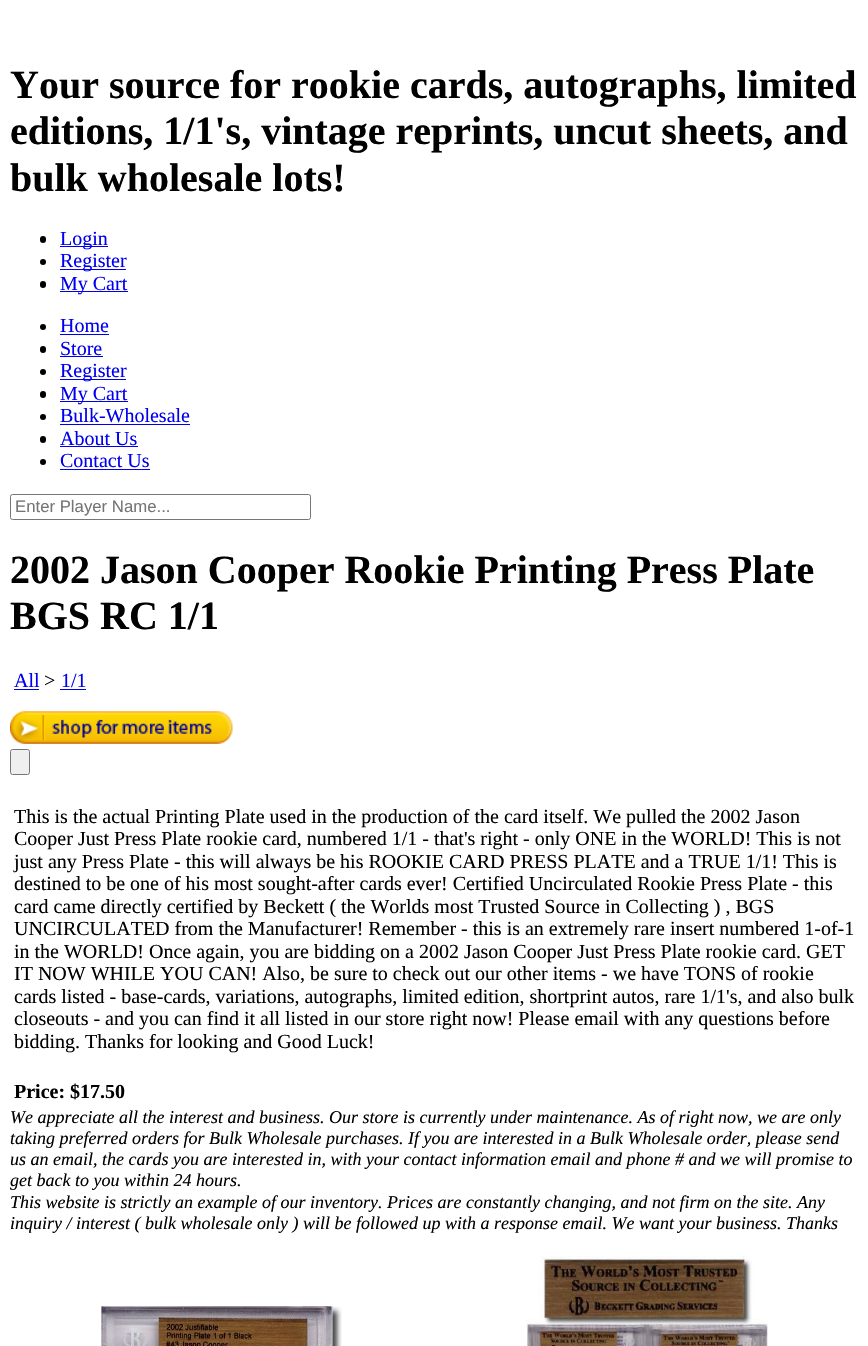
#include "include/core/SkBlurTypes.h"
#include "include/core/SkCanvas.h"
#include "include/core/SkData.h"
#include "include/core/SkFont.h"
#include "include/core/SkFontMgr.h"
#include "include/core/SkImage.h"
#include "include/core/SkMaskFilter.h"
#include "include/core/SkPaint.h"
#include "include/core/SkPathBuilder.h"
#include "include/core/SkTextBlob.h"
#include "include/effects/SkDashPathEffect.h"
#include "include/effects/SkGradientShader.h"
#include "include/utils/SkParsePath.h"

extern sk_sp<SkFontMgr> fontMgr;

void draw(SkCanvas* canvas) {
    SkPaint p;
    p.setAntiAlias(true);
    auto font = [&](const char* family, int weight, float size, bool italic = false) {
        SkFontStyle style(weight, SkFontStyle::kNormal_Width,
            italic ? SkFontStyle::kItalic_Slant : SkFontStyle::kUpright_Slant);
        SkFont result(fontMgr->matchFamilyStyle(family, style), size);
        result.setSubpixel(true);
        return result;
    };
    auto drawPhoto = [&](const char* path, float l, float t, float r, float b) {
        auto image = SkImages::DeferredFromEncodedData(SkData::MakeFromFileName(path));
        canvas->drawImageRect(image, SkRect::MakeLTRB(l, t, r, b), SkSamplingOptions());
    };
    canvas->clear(0xFFFFFFFF);
    auto font1 = font("Liberation Serif", 700, 40);
    p.setColor(0xFF000000);
    {
        const struct { const char* s; float x, y; } items[] = {
            {"Your source for rookie cards, autographs, limited", 10, 98},
            {"editions, 1/1's, vintage reprints, uncut sheets, and", 10, 144},
            {"bulk wholesale lots!", 10, 191},
        };
        for (auto [s, x, y] : items) {
            canvas->drawString(s, x, y, font1, p);
        }
    }
    canvas->drawRoundRect(SkRect::MakeLTRB(40, 236, 46, 243), 3, 3, p);
    p.setColor(0xFF0000EE);
    canvas->drawRect(SkRect::MakeLTRB(60, 246, 108, 247), p);
    auto font2 = font("Liberation Serif", 400, 20);
    canvas->drawString("Login", 60, 245, font2, p);
    p.setColor(0xFF000000);
    canvas->drawCircle(43, 262, 3, p);
    p.setColor(0xFF0000EE);
    canvas->drawRect(SkRect::MakeLTRB(60, 269, 126, 270), p);
    canvas->drawString("Register", 60, 267, font2, p);
    p.setColor(0xFF000000);
    canvas->drawRoundRect(SkRect::MakeLTRB(40, 281, 46, 288), 3, 3, p);
    p.setColor(0xFF0000EE);
    canvas->drawRect(SkRect::MakeLTRB(60, 291, 128, 292), p);
    canvas->drawString("My Cart", 60, 290, font2, p);
    p.setColor(0xFF000000);
    canvas->drawCircle(43, 327, 3, p);
    p.setColor(0xFF0000EE);
    canvas->drawString("Home", 60, 332, font2, p);
    canvas->drawRect(SkRect::MakeLTRB(60, 334, 109, 335), p);
    p.setColor(0xFF000000);
    canvas->drawRoundRect(SkRect::MakeLTRB(40, 346, 46, 353), 3, 3, p);
    p.setColor(0xFF0000EE);
    canvas->drawString("Store", 60, 355, font2, p);
    canvas->drawRect(SkRect::MakeLTRB(60, 356, 103, 357), p);
    p.setColor(0xFF000000);
    canvas->drawCircle(43, 372, 3, p);
    p.setColor(0xFF0000EE);
    canvas->drawRect(SkRect::MakeLTRB(60, 379, 126, 380), p);
    canvas->drawString("Register", 60, 377, font2, p);
    p.setColor(0xFF000000);
    canvas->drawRoundRect(SkRect::MakeLTRB(40, 391, 46, 398), 3, 3, p);
    p.setColor(0xFF0000EE);
    canvas->drawRect(SkRect::MakeLTRB(60, 401, 128, 402), p);
    canvas->drawString("My Cart", 60, 400, font2, p);
    p.setColor(0xFF000000);
    canvas->drawCircle(43, 417, 3, p);
    p.setColor(0xFF0000EE);
    canvas->drawString("Bulk-Wholesale", 60, 422, font2, p);
    canvas->drawRect(SkRect::MakeLTRB(60, 424, 190, 425), p);
    p.setColor(0xFF000000);
    canvas->drawRoundRect(SkRect::MakeLTRB(40, 436, 46, 443), 3, 3, p);
    p.setColor(0xFF0000EE);
    canvas->drawString("About Us", 60, 445, font2, p);
    canvas->drawRect(SkRect::MakeLTRB(60, 446, 138, 447), p);
    p.setColor(0xFF000000);
    canvas->drawCircle(43, 462, 3, p);
    p.setColor(0xFF0000EE);
    canvas->drawString("Contact Us", 60, 467, font2, p);
    canvas->drawRect(SkRect::MakeLTRB(60, 469, 150, 470), p);
    p.setStyle(SkPaint::kStroke_Style);
    p.setStrokeWidth(1);
    p.setColor(0xFF767676);
    canvas->drawRoundRect(SkRect::MakeLTRB(10.5f, 494.5f, 310.5f, 519.5f), 2, 2, p);
    auto font3 = font("Liberation Sans", 400, 16.75f);
    p.setStyle(SkPaint::kFill_Style);
    p.setColor(0xFF757575);
    canvas->drawString("Enter Player Name...", 15, 512, font3, p);
    p.setColor(0xFF000000);
    canvas->drawString("2002 Jason Cooper Rookie Printing Press Plate", 10, 583, font1, p);
    canvas->drawString("BGS RC 1/1", 10, 629, font1, p);
    p.setColor(0xFF0000EE);
    canvas->drawString("All", 14, 687, font2, p);
    canvas->drawRect(SkRect::MakeLTRB(14, 689, 39, 690), p);
    p.setColor(0xFF000000);
    canvas->drawString(">", 44, 687, font2, p);
    p.setColor(0xFF0000EE);
    canvas->drawString("1/1", 61, 687, font2, p);
    canvas->drawRect(SkRect::MakeLTRB(60, 689, 86, 690), p);
    drawPhoto("media/1.png", 10, 711, 233, 744);
    p.setColor(0xFFEFEFEF);
    canvas->drawRoundRect(SkRect::MakeLTRB(10.5f, 749.5f, 29.5f, 774.5f), 2, 2, p);
    p.setStyle(SkPaint::kStroke_Style);
    p.setColor(0xFF767676);
    canvas->drawRoundRect(SkRect::MakeLTRB(10.5f, 749.5f, 29.5f, 774.5f), 2, 2, p);
    p.setStyle(SkPaint::kFill_Style);
    p.setColor(0xFF000000);
    {
        const struct { const char* s; float x, y; } items[] = {
            {"This is the actual Printing Plate used in the production of the card itself. We pulled the 2002 Jason", 14, 823},
            {"Cooper Just Press Plate rookie card, numbered 1/1 - that's right - only ONE in the WORLD! This is not", 14, 845},
            {"just any Press Plate - this will always be his ROOKIE CARD PRESS PLATE and a TRUE 1/1! This is", 14, 868},
            {"destined to be one of his most sought-after cards ever! Certified Uncirculated Rookie Press Plate - this", 14, 890},
            {"card came directly certified by Beckett ( the Worlds most Trusted Source in Collecting ) , BGS", 14, 913},
            {"UNCIRCULATED from the Manufacturer! Remember - this is an extremely rare insert numbered 1-of-1", 14, 935},
            {"in the WORLD! Once again, you are bidding on a 2002 Jason Cooper Just Press Plate rookie card. GET", 14, 958},
            {"IT NOW WHILE YOU CAN! Also, be sure to check out our other items - we have TONS of rookie", 14, 980},
            {"cards listed - base-cards, variations, autographs, limited edition, shortprint autos, rare 1/1's, and also bulk", 14, 1003},
            {"closeouts - and you can find it all listed in our store right now! Please email with any questions before", 14, 1025},
            {"bidding. Thanks for looking and Good Luck!", 14, 1048},
        };
        for (auto [s, x, y] : items) {
            canvas->drawString(s, x, y, font2, p);
        }
    }
    auto font4 = font("Liberation Serif", 700, 20);
    canvas->drawString("Price: $17.50", 14, 1098, font4, p);
    auto font5 = font("Liberation Serif", 400, 18, true);
    {
        const struct { const char* s; float x, y; } items[] = {
            {"We appreciate all the interest and business. Our store is currently under maintenance. As of right now, we are only", 10, 1123},
            {"taking preferred orders for Bulk Wholesale purchases. If you are interested in a Bulk Wholesale order, please send", 10, 1144},
            {"us an email, the cards you are interested in, with your contact information email and phone # and we will promise to", 10, 1165},
            {"get back to you within 24 hours.", 10, 1186},
            {"This website is strictly an example of our inventory. Prices are constantly changing, and not firm on the site. Any", 10, 1208},
            {"inquiry / interest ( bulk wholesale only ) will be followed up with a response email. We want your business. Thanks", 10, 1229},
        };
        for (auto [s, x, y] : items) {
            canvas->drawString(s, x, y, font5, p);
        }
    }
    drawPhoto("media/2.png", 101, 1306, 342, 1346);
    drawPhoto("media/3.png", 526, 1256, 768, 1346);
}
